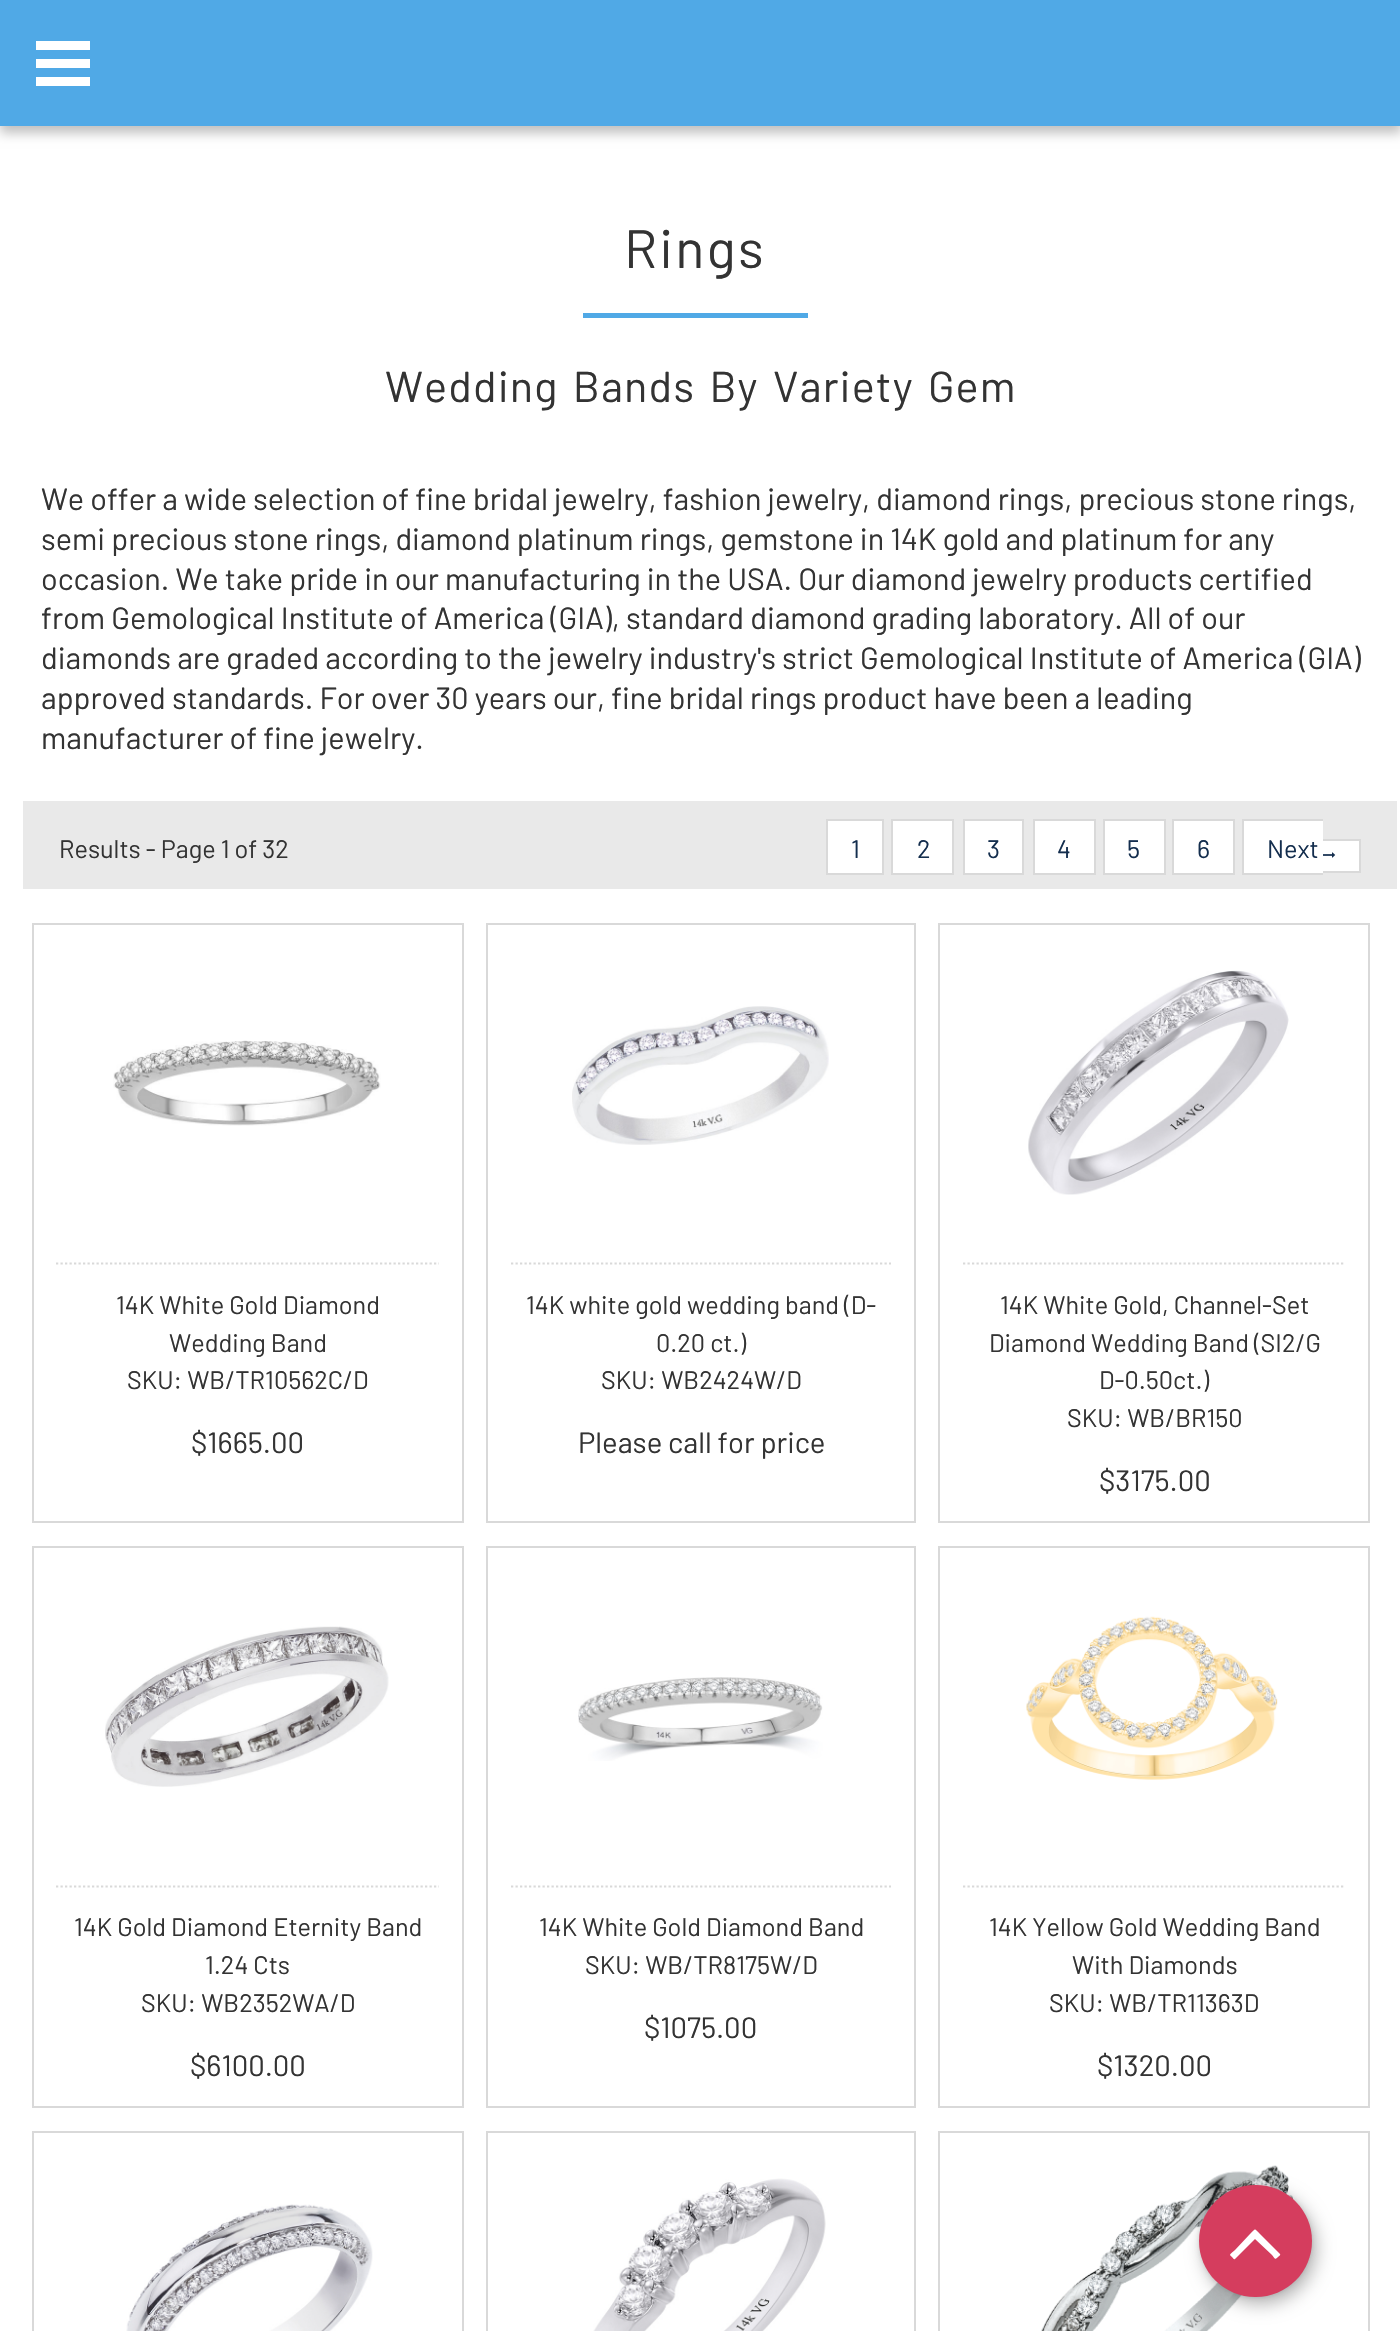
#include "include/core/SkBlurTypes.h"
#include "include/core/SkCanvas.h"
#include "include/core/SkData.h"
#include "include/core/SkFont.h"
#include "include/core/SkFontMgr.h"
#include "include/core/SkImage.h"
#include "include/core/SkMaskFilter.h"
#include "include/core/SkPaint.h"
#include "include/core/SkPathBuilder.h"
#include "include/core/SkTextBlob.h"
#include "include/effects/SkDashPathEffect.h"
#include "include/effects/SkGradientShader.h"
#include "include/utils/SkParsePath.h"

extern sk_sp<SkFontMgr> fontMgr;

void draw(SkCanvas* canvas) {
    SkPaint p;
    p.setAntiAlias(true);
    auto font = [&](const char* family, int weight, float size, bool italic = false) {
        SkFontStyle style(weight, SkFontStyle::kNormal_Width,
            italic ? SkFontStyle::kItalic_Slant : SkFontStyle::kUpright_Slant);
        SkFont result(fontMgr->matchFamilyStyle(family, style), size);
        result.setSubpixel(true);
        return result;
    };
    auto drawTracked = [&](const char* s, float x, float y, const SkFont& font, const SkPaint& ink, float letter, float word) {
        std::vector<SkGlyphID> glyphs(font.countText(s, strlen(s), SkTextEncoding::kUTF8));
        std::vector<float> xs(glyphs.size());
        font.textToGlyphs(s, strlen(s), SkTextEncoding::kUTF8, glyphs);
        font.getXPos(glyphs, xs, x);
        float extra = 0;
        for (size_t i = 0; i < glyphs.size(); i++) {
            xs[i] += extra;
            extra += letter + word * (glyphs[i] == font.unicharToGlyph(' '));
        }
        canvas->drawTextBlob(SkTextBlob::MakeFromPosHGlyphs(glyphs, xs, y, font), 0, 0, ink);
    };
    auto drawPhoto = [&](const char* path, float l, float t, float r, float b) {
        auto image = SkImages::DeferredFromEncodedData(SkData::MakeFromFileName(path));
        canvas->drawImageRect(image, SkRect::MakeLTRB(l, t, r, b), SkSamplingOptions());
    };
    canvas->clear(0xFFFFFFFF);
    p.setColor(0x40000000);
    p.setMaskFilter(SkMaskFilter::MakeBlur(kNormal_SkBlurStyle, 5.5f));
    canvas->drawRect(SkRect::MakeLTRB(0, 7, 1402, 133), p);
    p.setMaskFilter(nullptr);
    {
        const struct { float l, t, r, b; SkColor color; } items[] = {
            {0, 0, 1400, 126, 0xFF50A9E6},
            {36, 59, 90, 68, 0xFFFFFFFF},
            {36, 41, 90, 50, 0xFFFFFFFF},
            {36, 77, 90, 86, 0xFFFFFFFF},
        };
        for (auto [l, t, r, b, color] : items) {
            p.setColor(color);
            canvas->drawRect(SkRect::MakeLTRB(l, t, r, b), p);
        }
    }
    auto font1 = font("Barlow", 400, 54);
    p.setColor(0xFF333333);
    drawTracked("Rings", 624, 268, font1, p, 2.25f, 0);
    p.setColor(0xFF50A9E6);
    canvas->drawRect(SkRect::MakeLTRB(583, 313, 808, 318), p);
    auto font2 = font("Barlow", 400, 43.25f);
    p.setColor(0xFF333333);
    drawTracked("Wedding Bands By Variety Gem", 385, 402, font2, p, 1.1f, 4.5f);
    auto font3 = font("Barlow", 400, 30.6f);
    {
        const struct { const char* s; float x, y; } items[] = {
            {"We offer a wide selection of fine bridal jewelry, fashion jewelry, diamond rings, precious stone rings,", 41, 510},
            {"semi precious stone rings, diamond platinum rings, gemstone in 14K gold and platinum for any", 41, 550},
            {"occasion. We take pride in our manufacturing in the USA. Our diamond jewelry products certified", 41, 590},
            {"from Gemological Institute of America (GIA), standard diamond grading laboratory. All of our", 41, 629},
            {"diamonds are graded according to the jewelry industry's strict Gemological Institute of America (GIA)", 41, 669},
            {"approved standards. For over 30 years our, fine bridal rings product have been a leading", 41, 709},
            {"manufacturer of fine jewelry.", 41, 749},
        };
        for (auto [s, x, y] : items) {
            canvas->drawString(s, x, y, font3, p);
        }
    }
    p.setColor(0xFFE9E9E9);
    canvas->drawRect(SkRect::MakeLTRB(23, 801, 1397, 889), p);
    auto font4 = font("Barlow", 400, 25.25f);
    p.setColor(0xFF333333);
    canvas->drawString("Results - Page 1 of 32", 59, 858, font4, p);
    p.setColor(0xFFFFFFFF);
    canvas->drawRect(SkRect::MakeLTRB(827, 820, 883, 874), p);
    p.setStyle(SkPaint::kStroke_Style);
    p.setStrokeWidth(2);
    p.setColor(0xFFD9D9D9);
    canvas->drawRect(SkRect::MakeLTRB(827, 820, 883, 874), p);
    p.setStyle(SkPaint::kFill_Style);
    p.setColor(0xFF142E4E);
    canvas->drawString("1", 851, 858, font4, p);
    p.setColor(0xFFFFFFFF);
    canvas->drawRect(SkRect::MakeLTRB(892, 820, 953, 874), p);
    p.setStyle(SkPaint::kStroke_Style);
    p.setColor(0xFFD9D9D9);
    canvas->drawRect(SkRect::MakeLTRB(892, 820, 953, 874), p);
    p.setStyle(SkPaint::kFill_Style);
    p.setColor(0xFF142E4E);
    canvas->drawString("2", 917, 858, font4, p);
    p.setColor(0xFFFFFFFF);
    canvas->drawRect(SkRect::MakeLTRB(964, 820, 1023, 874), p);
    p.setStyle(SkPaint::kStroke_Style);
    p.setColor(0xFFD9D9D9);
    canvas->drawRect(SkRect::MakeLTRB(964, 820, 1023, 874), p);
    p.setStyle(SkPaint::kFill_Style);
    p.setColor(0xFF142E4E);
    canvas->drawString("3", 987, 858, font4, p);
    p.setColor(0xFFFFFFFF);
    canvas->drawRect(SkRect::MakeLTRB(1034, 820, 1095, 874), p);
    p.setStyle(SkPaint::kStroke_Style);
    p.setColor(0xFFD9D9D9);
    canvas->drawRect(SkRect::MakeLTRB(1034, 820, 1095, 874), p);
    p.setStyle(SkPaint::kFill_Style);
    p.setColor(0xFF142E4E);
    canvas->drawString("4", 1057, 858, font4, p);
    p.setColor(0xFFFFFFFF);
    canvas->drawRect(SkRect::MakeLTRB(1104, 820, 1165, 874), p);
    p.setStyle(SkPaint::kStroke_Style);
    p.setColor(0xFFD9D9D9);
    canvas->drawRect(SkRect::MakeLTRB(1104, 820, 1165, 874), p);
    p.setStyle(SkPaint::kFill_Style);
    p.setColor(0xFF142E4E);
    canvas->drawString("5", 1127, 858, font4, p);
    p.setColor(0xFFFFFFFF);
    canvas->drawRect(SkRect::MakeLTRB(1173, 820, 1234, 874), p);
    p.setStyle(SkPaint::kStroke_Style);
    p.setColor(0xFFD9D9D9);
    canvas->drawRect(SkRect::MakeLTRB(1173, 820, 1234, 874), p);
    p.setStyle(SkPaint::kFill_Style);
    p.setColor(0xFF142E4E);
    canvas->drawString("6", 1197, 858, font4, p);
    {
        const struct { float l, t, r, b; SkColor color; } items[] = {
            {1244, 821, 1323, 873, 0xFFFFFFFF},
            {1242, 819, 1323, 821, 0xFFD9D9D9},
            {1242, 873, 1323, 875, 0xFFD9D9D9},
            {1242, 819, 1244, 875, 0xFFD9D9D9},
            {1323, 841, 1359, 871, 0xFFFFFFFF},
            {1323, 839, 1361, 841, 0xFFD9D9D9},
            {1359, 839, 1361, 873, 0xFFD9D9D9},
            {1323, 871, 1361, 873, 0xFFD9D9D9},
        };
        for (auto [l, t, r, b, color] : items) {
            p.setColor(color);
            canvas->drawRect(SkRect::MakeLTRB(l, t, r, b), p);
        }
    }
    p.setColor(0xFF142E4E);
    canvas->drawString("Next", 1267, 858, font4, p);
    drawPhoto("media/1.png", 1323, 852, 1336, 858);
    p.setStyle(SkPaint::kStroke_Style);
    p.setColor(0xFFD9D9D9);
    canvas->drawRect(SkRect::MakeLTRB(33, 924, 463, 1522), p);
    drawPhoto("media/2.png", 113, 1040, 381, 1126);
    p.setStrokeWidth(2.2f);
    p.setPathEffect(SkDashPathEffect::Make({{2.25f, 2.25f}}, 0));
    canvas->drawPath(SkPathBuilder().moveTo(56, 1263.5f).lineTo(439, 1263.5f).detach(), p);
    p.setPathEffect(nullptr);
    p.setStyle(SkPaint::kFill_Style);
    p.setColor(0xFF333333);
    {
        const struct { const char* s; float x, y; } items[] = {
            {"14K White Gold Diamond", 116, 1314},
            {"Wedding Band", 169, 1352},
            {"SKU: WB/TR10562C/D", 127, 1389},
        };
        for (auto [s, x, y] : items) {
            canvas->drawString(s, x, y, font4, p);
        }
    }
    auto font5 = font("Barlow", 400, 29.25f);
    canvas->drawString("$1665.00", 191, 1453, font5, p);
    p.setStyle(SkPaint::kStroke_Style);
    p.setStrokeWidth(2);
    p.setColor(0xFFD9D9D9);
    canvas->drawRect(SkRect::MakeLTRB(487, 924, 915, 1522), p);
    drawPhoto("media/3.png", 572, 1006, 829, 1145);
    p.setStrokeWidth(2.2f);
    p.setPathEffect(SkDashPathEffect::Make({{2.25f, 2.25f}}, 0));
    canvas->drawPath(SkPathBuilder().moveTo(511, 1263.5f).lineTo(891, 1263.5f).detach(), p);
    p.setPathEffect(nullptr);
    p.setStyle(SkPaint::kFill_Style);
    p.setColor(0xFF333333);
    {
        const struct { const char* s; float x, y; } items[] = {
            {"14K white gold wedding band (D-", 526, 1314},
            {"0.20 ct.)", 656, 1352},
            {"SKU: WB2424W/D", 601, 1389},
        };
        for (auto [s, x, y] : items) {
            canvas->drawString(s, x, y, font4, p);
        }
    }
    canvas->drawString("Please call for price", 578, 1453, font5, p);
    p.setStyle(SkPaint::kStroke_Style);
    p.setStrokeWidth(2);
    p.setColor(0xFFD9D9D9);
    canvas->drawRect(SkRect::MakeLTRB(939, 924, 1369, 1522), p);
    drawPhoto("media/4.png", 1028, 970, 1289, 1195);
    p.setStrokeWidth(2.2f);
    p.setPathEffect(SkDashPathEffect::Make({{2.25f, 2.25f}}, 0));
    canvas->drawPath(SkPathBuilder().moveTo(963, 1263.5f).lineTo(1345.5f, 1263.5f).detach(), p);
    p.setPathEffect(nullptr);
    p.setStyle(SkPaint::kFill_Style);
    p.setColor(0xFF333333);
    {
        const struct { const char* s; float x, y; } items[] = {
            {"14K White Gold, Channel-Set", 1000, 1314},
            {"Diamond Wedding Band (SI2/G", 989, 1352},
            {"D-0.50ct.)", 1099, 1389},
            {"SKU: WB/BR150", 1067, 1427},
        };
        for (auto [s, x, y] : items) {
            canvas->drawString(s, x, y, font4, p);
        }
    }
    canvas->drawString("$3175.00", 1099, 1491, font5, p);
    p.setStyle(SkPaint::kStroke_Style);
    p.setStrokeWidth(2);
    p.setColor(0xFFD9D9D9);
    canvas->drawRect(SkRect::MakeLTRB(33, 1547, 463, 2107), p);
    drawPhoto("media/5.png", 105, 1626, 389, 1787);
    p.setStrokeWidth(2.2f);
    p.setPathEffect(SkDashPathEffect::Make({{2.25f, 2.25f}}, 0));
    canvas->drawPath(SkPathBuilder().moveTo(56, 1886.5f).lineTo(439, 1886.5f).detach(), p);
    p.setPathEffect(nullptr);
    p.setStyle(SkPaint::kFill_Style);
    p.setColor(0xFF333333);
    {
        const struct { const char* s; float x, y; } items[] = {
            {"14K Gold Diamond Eternity Band", 74, 1936},
            {"1.24 Cts", 205, 1974},
            {"SKU: WB2352WA/D", 141, 2012},
        };
        for (auto [s, x, y] : items) {
            canvas->drawString(s, x, y, font4, p);
        }
    }
    canvas->drawString("$6100.00", 190, 2076, font5, p);
    p.setStyle(SkPaint::kStroke_Style);
    p.setStrokeWidth(2);
    p.setColor(0xFFD9D9D9);
    canvas->drawRect(SkRect::MakeLTRB(487, 1547, 915, 2107), p);
    drawPhoto("media/6.png", 578, 1677, 823, 1761);
    p.setStrokeWidth(2.2f);
    p.setPathEffect(SkDashPathEffect::Make({{2.25f, 2.25f}}, 0));
    canvas->drawPath(SkPathBuilder().moveTo(511, 1886.5f).lineTo(891, 1886.5f).detach(), p);
    p.setPathEffect(nullptr);
    p.setStyle(SkPaint::kFill_Style);
    p.setColor(0xFF333333);
    canvas->drawString("14K White Gold Diamond Band", 539, 1936, font4, p);
    canvas->drawString("SKU: WB/TR8175W/D", 585, 1974, font4, p);
    canvas->drawString("$1075.00", 644, 2038, font5, p);
    p.setStyle(SkPaint::kStroke_Style);
    p.setStrokeWidth(2);
    p.setColor(0xFFD9D9D9);
    canvas->drawRect(SkRect::MakeLTRB(939, 1547, 1369, 2107), p);
    drawPhoto("media/7.png", 1026, 1616, 1278, 1780);
    p.setStrokeWidth(2.2f);
    p.setPathEffect(SkDashPathEffect::Make({{2.25f, 2.25f}}, 0));
    canvas->drawPath(SkPathBuilder().moveTo(963, 1886.5f).lineTo(1345.5f, 1886.5f).detach(), p);
    p.setPathEffect(nullptr);
    p.setStyle(SkPaint::kFill_Style);
    p.setColor(0xFF333333);
    {
        const struct { const char* s; float x, y; } items[] = {
            {"14K Yellow Gold Wedding Band", 989, 1936},
            {"With Diamonds", 1072, 1974},
            {"SKU: WB/TR11363D", 1049, 2012},
        };
        for (auto [s, x, y] : items) {
            canvas->drawString(s, x, y, font4, p);
        }
    }
    canvas->drawString("$1320.00", 1097, 2076, font5, p);
    p.setStyle(SkPaint::kStroke_Style);
    p.setStrokeWidth(2);
    p.setColor(0xFFD9D9D9);
    canvas->drawRect(SkRect::MakeLTRB(33, 2132, 463, 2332), p);
    drawPhoto("media/8.png", 126, 2204, 373, 2331);
    canvas->drawRect(SkRect::MakeLTRB(487, 2132, 915, 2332), p);
    drawPhoto("media/9.png", 593, 2178, 826, 2331);
    canvas->drawRect(SkRect::MakeLTRB(939, 2132, 1369, 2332), p);
    drawPhoto("media/10.png", 1041, 2165, 1293, 2331);
    p.setStyle(SkPaint::kFill_Style);
    p.setColor(0x4D000000);
    p.setMaskFilter(SkMaskFilter::MakeBlur(kNormal_SkBlurStyle, 9));
    canvas->drawRoundRect(SkRect::MakeLTRB(1204, 2192, 1316, 2304), 56, 56, p);
    p.setMaskFilter(nullptr);
    p.setColor(0x1F000000);
    p.setMaskFilter(SkMaskFilter::MakeBlur(kNormal_SkBlurStyle, 2));
    canvas->drawRoundRect(SkRect::MakeLTRB(1199, 2185, 1312, 2297), 56, 56, p);
    p.setMaskFilter(nullptr);
    p.setColor(0xFFD53D5E);
    canvas->drawRoundRect(SkRect::MakeLTRB(1199, 2185, 1312, 2297), 56, 56, p);
    p.setColor(0xFFFFFFFF);
    canvas->drawPath(SkPathBuilder().moveTo(1280, 2254).cubicTo(1281, 2255, 1279, 2256, 1278, 2257).cubicTo(1275, 2260, 1275, 2259, 1272, 2255).lineTo(1255, 2239).lineTo(1235, 2259).cubicTo(1234, 2260, 1233, 2258, 1232, 2257).cubicTo(1228, 2254, 1231, 2254, 1235, 2250).lineTo(1250, 2234).cubicTo(1256, 2228, 1254, 2228, 1260, 2234).close().detach(), p);
}
